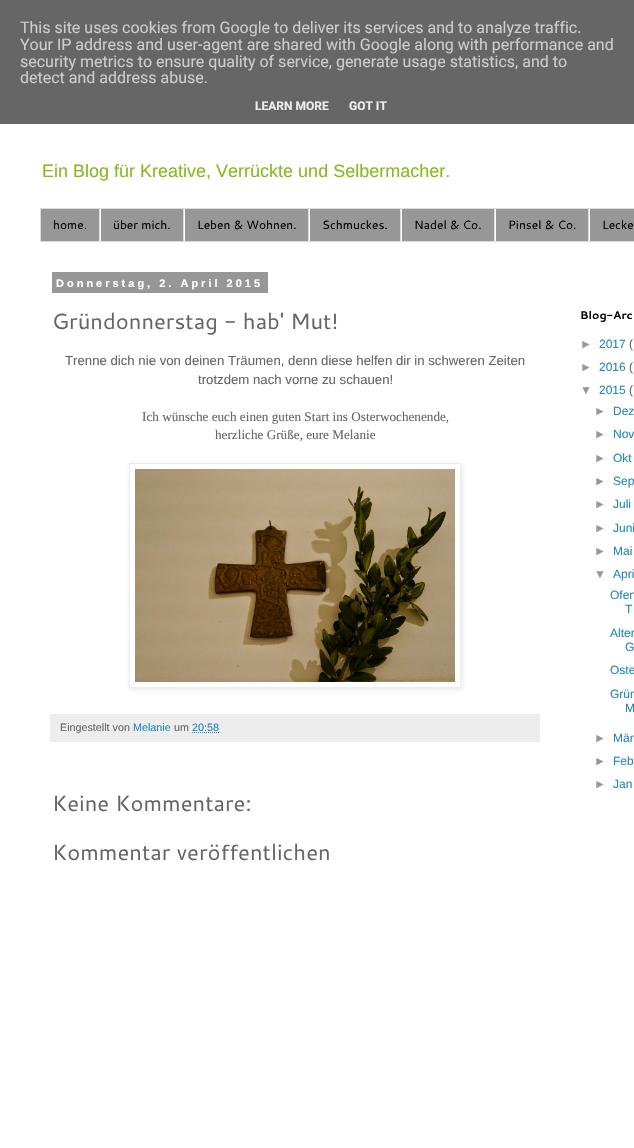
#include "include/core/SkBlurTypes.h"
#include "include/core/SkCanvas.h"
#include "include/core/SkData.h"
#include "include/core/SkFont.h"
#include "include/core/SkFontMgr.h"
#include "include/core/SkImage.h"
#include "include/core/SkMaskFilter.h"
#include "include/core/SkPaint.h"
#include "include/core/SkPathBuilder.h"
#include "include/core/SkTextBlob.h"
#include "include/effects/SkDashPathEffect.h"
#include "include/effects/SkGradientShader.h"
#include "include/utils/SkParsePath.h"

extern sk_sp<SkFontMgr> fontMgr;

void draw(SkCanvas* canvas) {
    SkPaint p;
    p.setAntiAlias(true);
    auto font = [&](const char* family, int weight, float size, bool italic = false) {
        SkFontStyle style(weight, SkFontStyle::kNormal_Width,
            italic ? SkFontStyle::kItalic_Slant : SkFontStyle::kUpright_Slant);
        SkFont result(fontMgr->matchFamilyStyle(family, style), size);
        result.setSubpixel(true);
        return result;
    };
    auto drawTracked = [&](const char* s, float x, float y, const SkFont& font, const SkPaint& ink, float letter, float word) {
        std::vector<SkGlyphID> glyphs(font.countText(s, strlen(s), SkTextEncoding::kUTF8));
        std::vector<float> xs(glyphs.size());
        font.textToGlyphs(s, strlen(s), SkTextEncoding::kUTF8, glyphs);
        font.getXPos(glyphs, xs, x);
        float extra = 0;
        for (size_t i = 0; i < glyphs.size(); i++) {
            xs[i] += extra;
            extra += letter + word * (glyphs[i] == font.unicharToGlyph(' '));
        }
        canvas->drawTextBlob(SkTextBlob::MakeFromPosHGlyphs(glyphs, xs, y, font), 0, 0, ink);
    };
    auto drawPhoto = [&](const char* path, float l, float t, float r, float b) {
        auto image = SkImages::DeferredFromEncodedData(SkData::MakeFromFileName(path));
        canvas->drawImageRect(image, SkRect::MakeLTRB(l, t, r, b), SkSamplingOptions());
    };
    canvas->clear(0xFFFFFFFF);
    p.setColor(0xFF666666);
    canvas->drawRect(SkRect::MakeLTRB(0, 0, 634, 124), p);
    auto font1 = font("Roboto", 400, 16);
    p.setColor(0xFFCCCCCC);
    {
        const struct { const char* s; float x, y; } items[] = {
            {"This site uses cookies from Google to deliver its services and to analyze traffic.", 20, 33},
            {"Your IP address and user-agent are shared with Google along with performance and", 20, 50},
            {"security metrics to ensure quality of service, generate usage statistics, and to", 20, 67},
            {"detect and address abuse.", 20, 83},
        };
        for (auto [s, x, y] : items) {
            canvas->drawString(s, x, y, font1, p);
        }
    }
    auto font2 = font("Roboto", 700, 12);
    p.setColor(0xFFEEEEEE);
    canvas->drawString("LEARN MORE", 255, 110, font2, p);
    canvas->drawString("GOT IT", 349, 110, font2, p);
    auto font3 = font("Liberation Sans", 400, 18);
    p.setColor(0xFF87BA20);
    canvas->drawString("Ein Blog für Kreative, Verrückte und Selbermacher.", 42, 177, font3, p);
    p.setColor(0xFF979797);
    canvas->drawRect(SkRect::MakeLTRB(40.5f, 208.5f, 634.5f, 241.5f), p);
    p.setStyle(SkPaint::kStroke_Style);
    p.setStrokeWidth(1);
    p.setColor(0xFFDCDCDC);
    canvas->drawRect(SkRect::MakeLTRB(40.5f, 208.5f, 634.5f, 241.5f), p);
    p.setStyle(SkPaint::kFill_Style);
    canvas->drawRect(SkRect::MakeLTRB(99, 209, 100, 241), p);
    auto font4 = font("Cantarell", 400, 12);
    p.setColor(0xFF000000);
    canvas->drawString("home.", 53, 229, font4, p);
    p.setColor(0xFFDCDCDC);
    canvas->drawRect(SkRect::MakeLTRB(183, 209, 184, 241), p);
    p.setColor(0xFFFFFFFF);
    canvas->drawRect(SkRect::MakeLTRB(100, 209, 101, 241), p);
    p.setColor(0xFF000000);
    canvas->drawString("über mich.", 113, 229, font4, p);
    p.setColor(0xFFDCDCDC);
    canvas->drawRect(SkRect::MakeLTRB(308, 209, 309, 241), p);
    p.setColor(0xFFFFFFFF);
    canvas->drawRect(SkRect::MakeLTRB(184, 209, 185, 241), p);
    p.setColor(0xFF000000);
    canvas->drawString("Leben & Wohnen.", 197, 229, font4, p);
    p.setColor(0xFFDCDCDC);
    canvas->drawRect(SkRect::MakeLTRB(400, 209, 401, 241), p);
    p.setColor(0xFFFFFFFF);
    canvas->drawRect(SkRect::MakeLTRB(309, 209, 310, 241), p);
    p.setColor(0xFF000000);
    canvas->drawString("Schmuckes.", 322, 229, font4, p);
    p.setColor(0xFFDCDCDC);
    canvas->drawRect(SkRect::MakeLTRB(494, 209, 495, 241), p);
    p.setColor(0xFFFFFFFF);
    canvas->drawRect(SkRect::MakeLTRB(401, 209, 402, 241), p);
    p.setColor(0xFF000000);
    canvas->drawString("Nadel & Co.", 414, 229, font4, p);
    p.setColor(0xFFDCDCDC);
    canvas->drawRect(SkRect::MakeLTRB(588, 209, 589, 241), p);
    p.setColor(0xFFFFFFFF);
    canvas->drawRect(SkRect::MakeLTRB(495, 209, 496, 241), p);
    p.setColor(0xFF000000);
    canvas->drawString("Pinsel & Co.", 508, 229, font4, p);
    p.setColor(0xFFFFFFFF);
    canvas->drawRect(SkRect::MakeLTRB(589, 209, 590, 241), p);
    p.setColor(0xFF000000);
    canvas->drawString("Lecke", 602, 229, font4, p);
    p.setColor(0xFF979797);
    canvas->drawRect(SkRect::MakeLTRB(52, 272, 268, 293), p);
    auto font5 = font("Liberation Sans", 700, 11);
    p.setColor(0xFFFFFFFF);
    drawTracked("Donnerstag, 2. April 2015", 56, 287, font5, p, 3, 0);
    auto font6 = font("Cantarell", 400, 22);
    p.setColor(0xFF656565);
    canvas->drawString("Gründonnerstag - hab' Mut!", 52, 329, font6, p);
    auto font7 = font("Liberation Sans", 400, 13.2f);
    canvas->drawString("Trenne dich nie von deinen Träumen, denn diese helfen dir in schweren Zeiten", 65, 365, font7, p);
    canvas->drawString("trotzdem nach vorne zu schauen!", 198, 384, font7, p);
    auto font8 = font("Liberation Serif", 400, 13.2f);
    canvas->drawString("Ich wünsche euch einen guten Start ins Osterwochenende,", 142, 421, font8, p);
    canvas->drawString("herzliche Grüße, eure Melanie", 215, 439, font8, p);
    canvas->save();
    canvas->clipPath(SkPathBuilder(SkPathFillType::kEvenOdd).moveTo(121, 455).lineTo(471, 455).lineTo(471, 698).lineTo(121, 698).close().moveTo(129, 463).lineTo(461, 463).lineTo(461, 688).lineTo(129, 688).close().detach(), true);
    p.setColor(0x1A000000);
    p.setMaskFilter(SkMaskFilter::MakeBlur(kNormal_SkBlurStyle, 2.5f));
    canvas->drawRect(SkRect::MakeLTRB(130, 464, 462, 689), p);
    p.setMaskFilter(nullptr);
    canvas->restore();
    p.setStyle(SkPaint::kStroke_Style);
    p.setColor(0xFFEDEDED);
    canvas->drawRect(SkRect::MakeLTRB(129.5f, 463.5f, 460.5f, 687.5f), p);
    drawPhoto("media/1.png", 135, 469, 455, 682);
    p.setStyle(SkPaint::kFill_Style);
    canvas->drawRect(SkRect::MakeLTRB(50, 714, 540, 742), p);
    auto font9 = font("Liberation Sans", 400, 10.75f);
    p.setColor(0xFF656565);
    canvas->drawString("Eingestellt von", 60, 731, font9, p);
    p.setColor(0xFF2187BA);
    canvas->drawString("Melanie", 133, 731, font9, p);
    p.setColor(0xFF656565);
    canvas->drawString("um", 174, 731, font9, p);
    p.setColor(0xFF2187BA);
    canvas->drawString("20:58", 192, 731, font9, p);
    p.setStyle(SkPaint::kStroke_Style);
    p.setPathEffect(SkDashPathEffect::Make({{1, 1}}, 0));
    canvas->drawPath(SkPathBuilder().moveTo(192, 732.5f).lineTo(219, 732.5f).detach(), p);
    p.setPathEffect(nullptr);
    p.setStyle(SkPaint::kFill_Style);
    p.setColor(0xFF656565);
    canvas->drawString("Keine Kommentare:", 52, 811, font6, p);
    canvas->drawString("Kommentar veröffentlichen", 52, 860, font6, p);
    auto font10 = font("Cantarell", 700, 11);
    p.setColor(0xFF000000);
    canvas->drawString("Blog-Arc", 580, 319, font10, p);
    auto font11 = font("Liberation Sans", 400, 12);
    p.setColor(0xFF989898);
    canvas->drawString("►", 580, 348, font11, p);
    p.setColor(0xFF2187BA);
    canvas->drawString("2017", 599, 348, font11, p);
    p.setColor(0xFF656565);
    canvas->drawString("(", 629, 348, font11, p);
    p.setColor(0xFF989898);
    canvas->drawString("►", 580, 371, font11, p);
    p.setColor(0xFF2187BA);
    canvas->drawString("2016", 599, 371, font11, p);
    p.setColor(0xFF656565);
    canvas->drawString("(", 629, 371, font11, p);
    p.setColor(0xFF989898);
    canvas->drawString("▼", 580, 394, font11, p);
    p.setColor(0xFF2187BA);
    canvas->drawString("2015", 599, 394, font11, p);
    p.setColor(0xFF656565);
    canvas->drawString("(", 629, 394, font11, p);
    p.setColor(0xFF989898);
    canvas->drawString("►", 594, 415, font11, p);
    p.setColor(0xFF2187BA);
    canvas->drawString("Dez", 613, 415, font11, p);
    p.setColor(0xFF989898);
    canvas->drawString("►", 594, 438, font11, p);
    p.setColor(0xFF2187BA);
    canvas->drawString("Nov", 613, 438, font11, p);
    p.setColor(0xFF989898);
    canvas->drawString("►", 594, 462, font11, p);
    p.setColor(0xFF2187BA);
    canvas->drawString("Okt", 613, 462, font11, p);
    p.setColor(0xFF989898);
    canvas->drawString("►", 594, 485, font11, p);
    p.setColor(0xFF2187BA);
    canvas->drawString("Sep", 613, 485, font11, p);
    p.setColor(0xFF989898);
    canvas->drawString("►", 594, 508, font11, p);
    p.setColor(0xFF2187BA);
    canvas->drawString("Juli", 613, 508, font11, p);
    p.setColor(0xFF989898);
    canvas->drawString("►", 594, 532, font11, p);
    p.setColor(0xFF2187BA);
    canvas->drawString("Juni", 613, 532, font11, p);
    p.setColor(0xFF989898);
    canvas->drawString("►", 594, 555, font11, p);
    p.setColor(0xFF2187BA);
    canvas->drawString("Mai", 613, 555, font11, p);
    p.setColor(0xFF989898);
    canvas->drawString("▼", 594, 578, font11, p);
    p.setColor(0xFF2187BA);
    {
        const struct { const char* s; float x, y; } items[] = {
            {"Apri", 613, 578},
            {"Ofen", 610, 599},
            {"T", 625, 613},
            {"Alter", 610, 637},
            {"G", 625, 651},
            {"Oste", 610, 674},
            {"Grün", 610, 698},
            {"M", 625, 712},
        };
        for (auto [s, x, y] : items) {
            canvas->drawString(s, x, y, font11, p);
        }
    }
    p.setColor(0xFF989898);
    canvas->drawString("►", 594, 742, font11, p);
    p.setColor(0xFF2187BA);
    canvas->drawString("Mär", 613, 742, font11, p);
    p.setColor(0xFF989898);
    canvas->drawString("►", 594, 765, font11, p);
    p.setColor(0xFF2187BA);
    canvas->drawString("Feb", 613, 765, font11, p);
    p.setColor(0xFF989898);
    canvas->drawString("►", 594, 788, font11, p);
    p.setColor(0xFF2187BA);
    canvas->drawString("Jan", 613, 788, font11, p);
}
